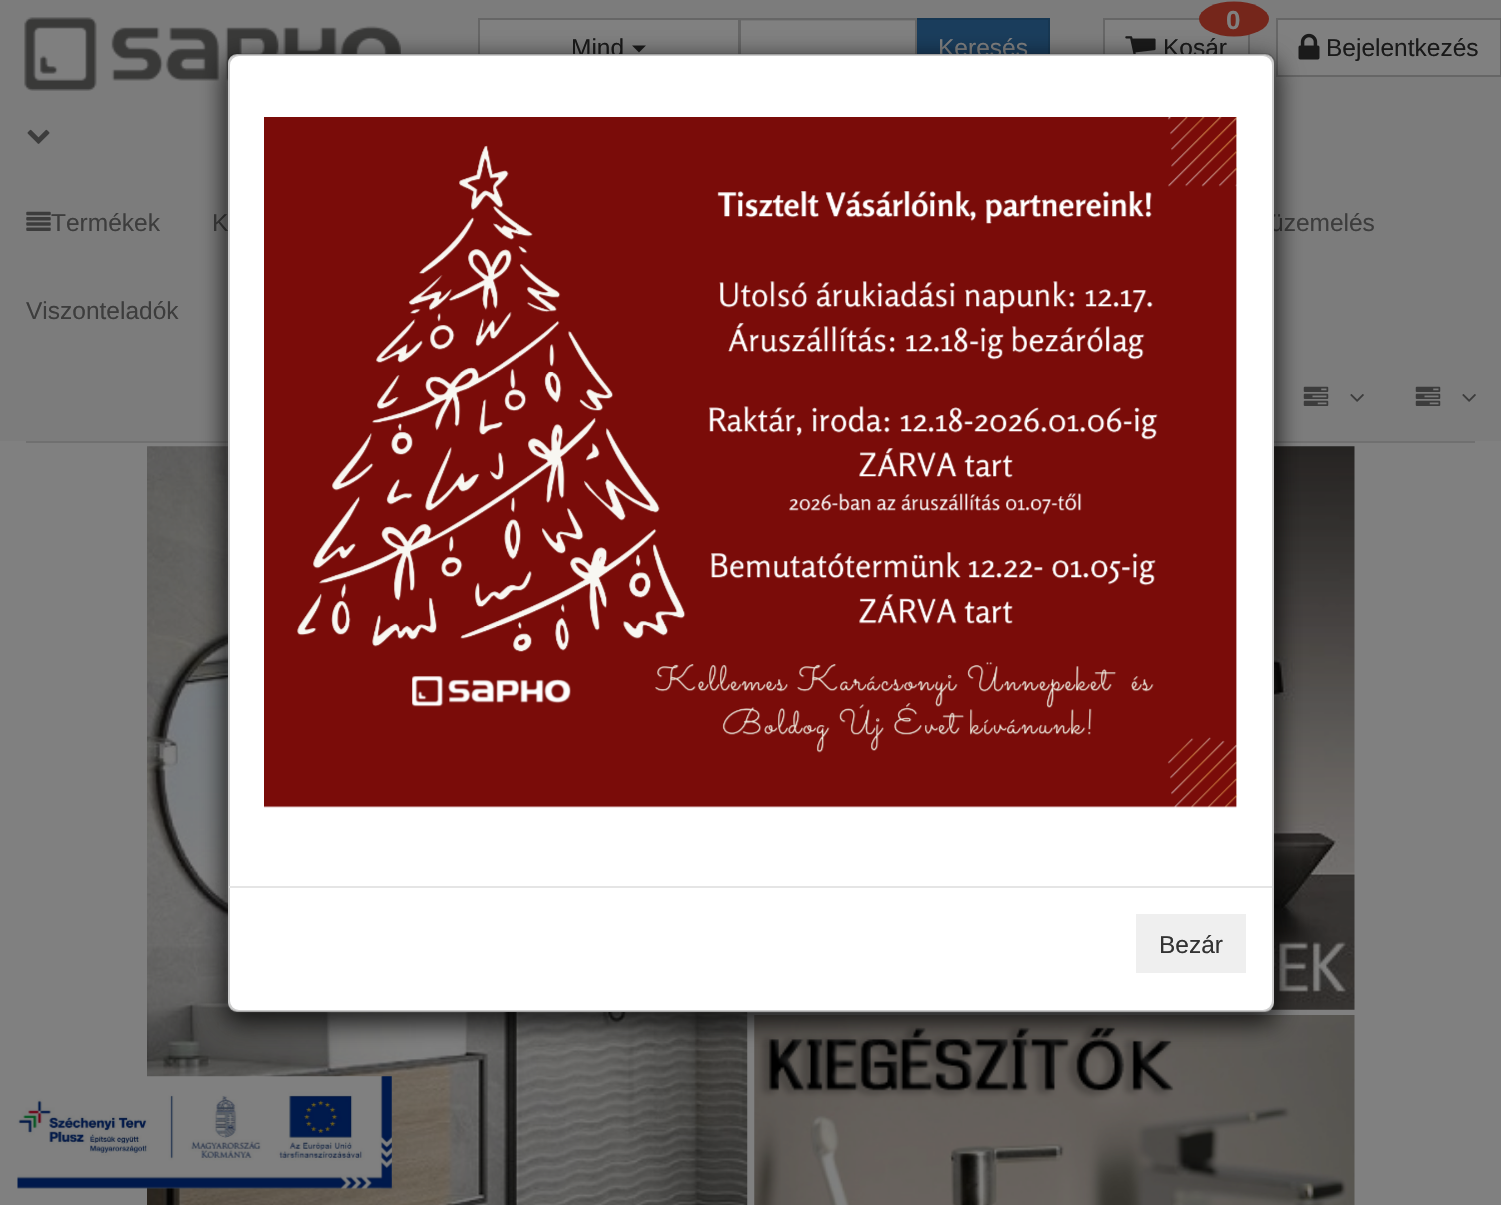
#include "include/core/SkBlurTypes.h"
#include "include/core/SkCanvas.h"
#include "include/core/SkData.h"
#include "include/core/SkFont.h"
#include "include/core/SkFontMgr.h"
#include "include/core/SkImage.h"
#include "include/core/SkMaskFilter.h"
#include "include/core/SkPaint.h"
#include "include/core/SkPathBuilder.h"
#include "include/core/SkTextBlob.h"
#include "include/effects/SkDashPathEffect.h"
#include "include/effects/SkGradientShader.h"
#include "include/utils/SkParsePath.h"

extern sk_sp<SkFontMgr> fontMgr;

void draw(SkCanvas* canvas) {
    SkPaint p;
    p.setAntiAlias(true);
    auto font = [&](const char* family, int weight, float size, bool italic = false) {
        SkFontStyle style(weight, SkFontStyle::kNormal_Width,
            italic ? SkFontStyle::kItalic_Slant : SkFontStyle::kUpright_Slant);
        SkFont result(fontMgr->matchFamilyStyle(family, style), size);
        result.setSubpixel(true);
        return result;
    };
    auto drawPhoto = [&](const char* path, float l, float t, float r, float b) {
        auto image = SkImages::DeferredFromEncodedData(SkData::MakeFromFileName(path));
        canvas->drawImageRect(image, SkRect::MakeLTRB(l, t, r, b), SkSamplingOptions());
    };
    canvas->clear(0xFF808080);
    p.setColor(0xFF7C7C7C);
    canvas->drawRect(SkRect::MakeLTRB(0, 0, 1501, 441), p);
    drawPhoto("media/1.png", 24, 17, 401, 91);
    p.setColor(0xFF808080);
    canvas->drawRect(SkRect::MakeLTRB(480, 20, 738, 54), p);
    p.setStyle(SkPaint::kStroke_Style);
    p.setStrokeWidth(2);
    p.setColor(0xFF666666);
    canvas->drawRect(SkRect::MakeLTRB(479, 19, 739, 76), p);
    auto font1 = font("Liberation Sans", 400, 24.5f);
    p.setStyle(SkPaint::kFill_Style);
    p.setColor(0xFF1A1A1A);
    canvas->drawString("Mind", 571, 56, font1, p);
    canvas->drawPath(SkPathBuilder().moveTo(632, 45.5f).lineTo(646, 45.5f).lineTo(639, 52.5f).close().detach(), p);
    {
        const struct { float l, t, r, b; SkColor color; } items[] = {
            {741, 21, 915, 54, 0xFF808080},
            {740, 20, 915, 21, 0xFF767676},
            {917, 20, 1048, 54, 0xFF1A3D5C},
        };
        for (auto [l, t, r, b, color] : items) {
            p.setColor(color);
            canvas->drawRect(SkRect::MakeLTRB(l, t, r, b), p);
        }
    }
    p.setStyle(SkPaint::kStroke_Style);
    p.setColor(0xFF173752);
    canvas->drawRect(SkRect::MakeLTRB(916, 19, 1049, 76), p);
    p.setColor(0xFF666666);
    canvas->drawRect(SkRect::MakeLTRB(740, 19, 916, 76), p);
    p.setStyle(SkPaint::kFill_Style);
    p.setColor(0xFF808080);
    canvas->drawString("Keresés", 938, 56, font1, p);
    canvas->drawRect(SkRect::MakeLTRB(1105, 20, 1248, 54), p);
    p.setStyle(SkPaint::kStroke_Style);
    p.setColor(0xFF666666);
    canvas->drawRect(SkRect::MakeLTRB(1104, 19, 1249, 76), p);
    p.setStyle(SkPaint::kFill_Style);
    p.setColor(0xFF75261B);
    canvas->drawOval(SkRect::MakeLTRB(1199, 1.5f, 1269, 36.5f), p);
    auto font2 = font("Liberation Sans", 700, 26);
    p.setColor(0xFF808080);
    canvas->drawString("0", 1226, 29, font2, p);
    drawPhoto("media/2.png", 1125, 36, 1156, 54);
    p.setColor(0xFF1A1A1A);
    canvas->drawString("Kosár", 1163, 56, font1, p);
    p.setColor(0xFF808080);
    canvas->drawRect(SkRect::MakeLTRB(1277, 19, 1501, 76), p);
    p.setStyle(SkPaint::kStroke_Style);
    p.setColor(0xFF666666);
    canvas->drawRect(SkRect::MakeLTRB(1277, 19, 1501, 76), p);
    drawPhoto("media/3.png", 1298, 33, 1320, 60);
    p.setStyle(SkPaint::kFill_Style);
    p.setColor(0xFF1A1A1A);
    canvas->drawString("Bejelentkezés", 1326, 56, font1, p);
    p.setColor(0xFF707070);
    canvas->drawRect(SkRect::MakeLTRB(26, 441, 1475, 443), p);
    drawPhoto("media/4.png", 27, 129, 50, 144);
    drawPhoto("media/5.png", 26, 211, 51, 231);
    p.setColor(0xFF3D3D3D);
    {
        const struct { const char* s; float x, y; } items[] = {
            {"Termékek", 51, 231},
            {"K", 212, 231},
            {"üzemelés", 1270, 231},
            {"Viszonteladók", 26, 319},
        };
        for (auto [s, x, y] : items) {
            canvas->drawString(s, x, y, font1, p);
        }
    }
    drawPhoto("media/6.png", 1303, 386, 1329, 406);
    drawPhoto("media/7.png", 1350, 394, 1364, 402);
    drawPhoto("media/6.png", 1415, 386, 1441, 406);
    drawPhoto("media/7.png", 1462, 394, 1476, 402);
    drawPhoto("media/8.png", 147, 446, 748, 1205);
    drawPhoto("media/9.png", 1270, 446, 1355, 1010);
    drawPhoto("media/10.png", 754, 1015, 1355, 1205);
    drawPhoto("media/11.png", 17, 1076, 392, 1189);
    canvas->save();
    canvas->clipPath(SkPathBuilder(SkPathFillType::kEvenOdd).moveTo(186, 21).lineTo(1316, 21).lineTo(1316, 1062).lineTo(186, 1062).close().moveTo(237, 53).lineTo(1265, 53).cubicTo(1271, 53, 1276, 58, 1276, 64).lineTo(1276, 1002).cubicTo(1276, 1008, 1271, 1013, 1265, 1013).lineTo(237, 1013).cubicTo(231, 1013, 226, 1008, 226, 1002).lineTo(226, 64).cubicTo(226, 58, 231, 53, 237, 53).close().detach(), true);
    p.setColor(0x80000000);
    p.setMaskFilter(SkMaskFilter::MakeBlur(kNormal_SkBlurStyle, 13));
    canvas->drawRoundRect(SkRect::MakeLTRB(226, 61, 1276, 1022), 11, 11, p);
    p.setMaskFilter(nullptr);
    canvas->restore();
    p.setColor(0xFFFFFFFF);
    canvas->drawRoundRect(SkRect::MakeLTRB(228, 54, 1274, 1012), 9, 9, p);
    p.setStyle(SkPaint::kStroke_Style);
    p.setColor(0x33000000);
    canvas->drawRoundRect(SkRect::MakeLTRB(227, 54, 1275, 1012), 10, 10, p);
    canvas->save();
    canvas->clipPath(SkPathBuilder(SkPathFillType::kEvenOdd).moveTo(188, 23).lineTo(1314, 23).lineTo(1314, 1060).lineTo(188, 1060).close().moveTo(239, 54).lineTo(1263, 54).cubicTo(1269, 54, 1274, 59, 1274, 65).lineTo(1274, 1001).cubicTo(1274, 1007, 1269, 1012, 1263, 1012).lineTo(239, 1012).cubicTo(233, 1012, 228, 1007, 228, 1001).lineTo(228, 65).cubicTo(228, 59, 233, 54, 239, 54).close().detach(), true);
    p.setStyle(SkPaint::kFill_Style);
    p.setColor(0x80000000);
    p.setMaskFilter(SkMaskFilter::MakeBlur(kNormal_SkBlurStyle, 13));
    canvas->drawRoundRect(SkRect::MakeLTRB(228, 63, 1274, 1020), 11, 11, p);
    p.setMaskFilter(nullptr);
    canvas->restore();
    p.setStyle(SkPaint::kStroke_Style);
    p.setColor(0x33000000);
    canvas->drawRoundRect(SkRect::MakeLTRB(229, 55, 1273, 1011), 10, 10, p);
    drawPhoto("media/12.png", 264, 117, 1237, 808);
    p.setStyle(SkPaint::kFill_Style);
    p.setColor(0xFFE5E5E5);
    canvas->drawRect(SkRect::MakeLTRB(229, 886, 1272, 888), p);
    p.setColor(0xFFEFEFEF);
    canvas->drawRect(SkRect::MakeLTRB(1136, 914, 1246, 973), p);
    p.setColor(0xFF333333);
    canvas->drawString("Bezár", 1159, 953, font1, p);
}
